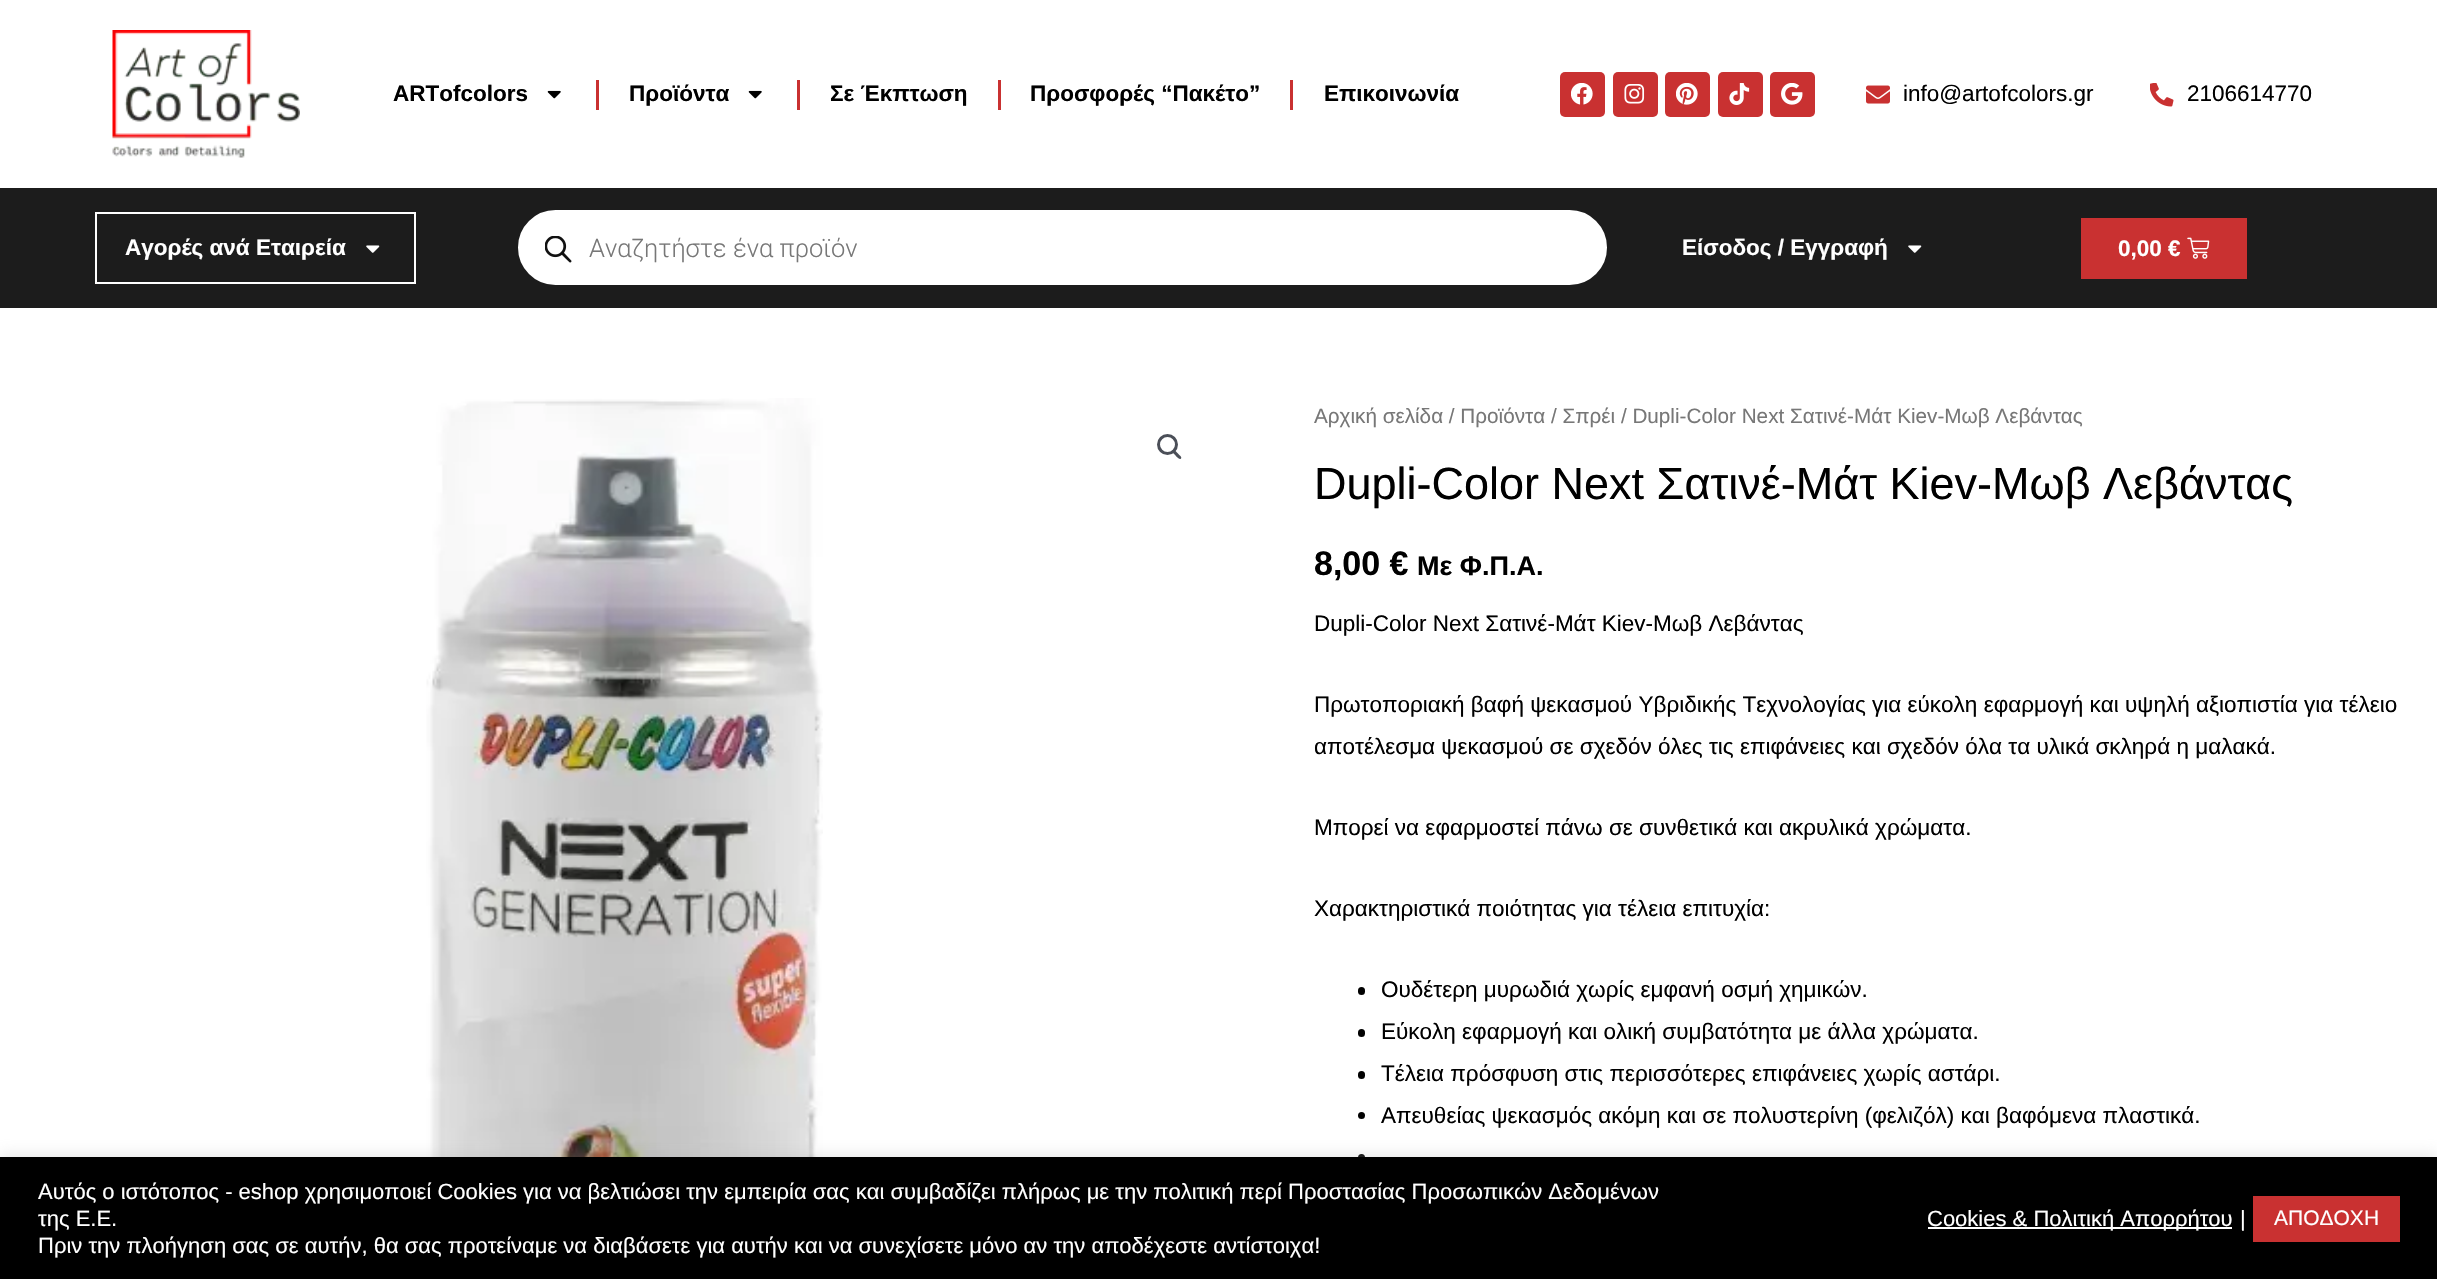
#include "include/core/SkBlurTypes.h"
#include "include/core/SkCanvas.h"
#include "include/core/SkData.h"
#include "include/core/SkFont.h"
#include "include/core/SkFontMgr.h"
#include "include/core/SkImage.h"
#include "include/core/SkMaskFilter.h"
#include "include/core/SkPaint.h"
#include "include/core/SkPathBuilder.h"
#include "include/core/SkTextBlob.h"
#include "include/effects/SkDashPathEffect.h"
#include "include/effects/SkGradientShader.h"
#include "include/utils/SkParsePath.h"

extern sk_sp<SkFontMgr> fontMgr;

void draw(SkCanvas* canvas) {
    SkPaint p;
    p.setAntiAlias(true);
    auto font = [&](const char* family, int weight, float size, bool italic = false) {
        SkFontStyle style(weight, SkFontStyle::kNormal_Width,
            italic ? SkFontStyle::kItalic_Slant : SkFontStyle::kUpright_Slant);
        SkFont result(fontMgr->matchFamilyStyle(family, style), size);
        result.setSubpixel(true);
        return result;
    };
    auto drawPhoto = [&](const char* path, float l, float t, float r, float b) {
        auto image = SkImages::DeferredFromEncodedData(SkData::MakeFromFileName(path));
        canvas->drawImageRect(image, SkRect::MakeLTRB(l, t, r, b), SkSamplingOptions());
    };
    canvas->clear(0xFFFFFFFF);
    drawPhoto("media/1.png", 112, 30, 300, 158);
    auto font1 = font("Liberation Sans", 700, 22.5f);
    p.setColor(0xFF000000);
    canvas->drawString("ARTofcolors", 393, 101, font1, p);
    drawPhoto("media/2.png", 547, 90, 561, 99);
    p.setColor(0xFFC93131);
    canvas->drawRect(SkRect::MakeLTRB(596, 80, 599, 110), p);
    p.setColor(0xFF000000);
    canvas->drawString("Προϊόντα", 629, 101, font1, p);
    drawPhoto("media/2.png", 748, 90, 762, 99);
    p.setColor(0xFFC93131);
    canvas->drawRect(SkRect::MakeLTRB(797, 80, 800, 110), p);
    p.setColor(0xFF000000);
    canvas->drawString("Σε Έκπτωση", 830, 101, font1, p);
    p.setColor(0xFFC93131);
    canvas->drawRect(SkRect::MakeLTRB(998, 80, 1001, 110), p);
    p.setColor(0xFF000000);
    canvas->drawString("Προσφορές “Πακέτο”", 1030, 101, font1, p);
    p.setColor(0xFFC93131);
    canvas->drawRect(SkRect::MakeLTRB(1290, 80, 1293, 110), p);
    p.setColor(0xFF000000);
    canvas->drawString("Επικοινωνία", 1324, 101, font1, p);
    p.setColor(0xFFC93131);
    canvas->drawRoundRect(SkRect::MakeLTRB(1560, 72, 1605, 117), 5, 5, p);
    drawPhoto("media/3.png", 1571, 83, 1593, 105);
    canvas->drawRoundRect(SkRect::MakeLTRB(1613, 72, 1658, 117), 5, 5, p);
    drawPhoto("media/4.png", 1624, 84, 1645, 104);
    canvas->drawRoundRect(SkRect::MakeLTRB(1665, 72, 1710, 117), 5, 5, p);
    drawPhoto("media/5.png", 1676, 83, 1698, 105);
    canvas->drawRoundRect(SkRect::MakeLTRB(1718, 72, 1763, 117), 5, 5, p);
    drawPhoto("media/6.png", 1729, 83, 1750, 105);
    canvas->drawRoundRect(SkRect::MakeLTRB(1770, 72, 1815, 117), 5, 5, p);
    drawPhoto("media/7.png", 1781, 83, 1803, 105);
    drawPhoto("media/8.png", 1866, 85, 1890, 104);
    auto font2 = font("Liberation Sans", 400, 22.5f);
    p.setColor(0xFF000000);
    canvas->drawString("info@artofcolors.gr", 1903, 101, font2, p);
    drawPhoto("media/9.png", 2150, 83, 2174, 107);
    canvas->drawString("2106614770", 2187, 101, font2, p);
    p.setColor(0xFF1C1C1C);
    canvas->drawRect(SkRect::MakeLTRB(0, 188, 2437, 308), p);
    p.setStyle(SkPaint::kStroke_Style);
    p.setStrokeWidth(2);
    p.setColor(0xFFFFFFFF);
    canvas->drawRect(SkRect::MakeLTRB(96, 213, 415, 283), p);
    p.setStyle(SkPaint::kFill_Style);
    canvas->drawString("Αγορές ανά Εταιρεία", 125, 255, font1, p);
    drawPhoto("media/10.png", 366, 245, 380, 253);
    canvas->drawRoundRect(SkRect::MakeLTRB(516.5f, 208.5f, 1608.5f, 286.5f), 39, 39, p);
    p.setStyle(SkPaint::kStroke_Style);
    p.setStrokeWidth(3);
    p.setColor(0xFF1C1C1C);
    canvas->drawRoundRect(SkRect::MakeLTRB(516.5f, 208.5f, 1608.5f, 286.5f), 39, 39, p);
    drawPhoto("media/11.png", 545, 236, 572, 263);
    auto font3 = font("Roboto", 300, 25.5f);
    p.setStyle(SkPaint::kFill_Style);
    p.setColor(0xFF777777);
    canvas->drawString("Αναζητήστε ένα προϊόν", 589, 257, font3, p);
    p.setColor(0xFFFFFFFF);
    canvas->drawString("Είσοδος / Εγγραφή", 1682, 255, font1, p);
    drawPhoto("media/10.png", 1908, 245, 1922, 253);
    p.setColor(0xFFC93131);
    canvas->drawRect(SkRect::MakeLTRB(2081, 218, 2247, 279), p);
    p.setColor(0xFFFFFFFF);
    canvas->drawString("0,00 €", 2118, 256, font1, p);
    drawPhoto("media/12.png", 2187, 237, 2210, 259);
    drawPhoto("media/13.png", 426, 398, 823, 1157);
    p.setStyle(SkPaint::kStroke_Style);
    p.setColor(0xFF4B4F58);
    canvas->drawCircle(1167.5f, 444.5f, 9, p);
    p.setStyle(SkPaint::kFill_Style);
    canvas->drawPath(SkPathBuilder().moveTo(1172.5f, 450.5f).cubicTo(1174, 448.5f, 1177, 452.5f, 1178, 453.5f).cubicTo(1178.5f, 454.5f, 1182.5f, 457, 1181, 458.5f).cubicTo(1179.5f, 460.5f, 1176.5f, 456.5f, 1175.5f, 455.5f).cubicTo(1175, 454.5f, 1171, 452, 1172.5f, 450.5f).close().detach(), p);
    auto font4 = font("Liberation Sans", 400, 20.7f);
    p.setColor(0xFF777777);
    canvas->drawString("Αρχική σελίδα / Προϊόντα / Σπρέι / Dupli-Color Next Σατινέ-Μάτ Kiev-Μωβ Λεβάντας", 1314, 423, font4, p);
    auto font5 = font("Liberation Sans", 400, 45);
    p.setColor(0xFF000000);
    canvas->drawString("Dupli-Color Next Σατινέ-Μάτ Kiev-Μωβ Λεβάντας", 1314, 499, font5, p);
    auto font6 = font("Liberation Sans", 700, 34);
    canvas->drawString("8,00 €", 1314, 575, font6, p);
    auto font7 = font("Liberation Sans", 700, 27);
    canvas->drawString("Με Φ.Π.Α.", 1417, 575, font7, p);
    {
        const struct { const char* s; float x, y; } items[] = {
            {"Dupli-Color Next Σατινέ-Μάτ Kiev-Μωβ Λεβάντας", 1314, 631},
            {"Πρωτοποριακή βαφή ψεκασμού Υβριδικής Τεχνολογίας για εύκολη εφαρμογή και υψηλή αξιοπιστία για τέλειο", 1314, 712},
            {"αποτέλεσμα ψεκασμού σε σχεδόν όλες τις επιφάνειες και σχεδόν όλα τα υλικά σκληρά η μαλακά.", 1314, 754},
            {"Μπορεί να εφαρμοστεί πάνω σε συνθετικά και ακρυλικά χρώματα.", 1314, 835},
            {"Χαρακτηριστικά ποιότητας για τέλεια επιτυχία:", 1314, 916},
        };
        for (auto [s, x, y] : items) {
            canvas->drawString(s, x, y, font2, p);
        }
    }
    p.setColor(0xFF010101);
    canvas->drawRoundRect(SkRect::MakeLTRB(1358, 987, 1365, 995), 3.5f, 3.5f, p);
    p.setColor(0xFF000000);
    canvas->drawString("Ουδέτερη μυρωδιά χωρίς εμφανή οσμή χημικών.", 1381, 997, font2, p);
    p.setColor(0xFF010101);
    canvas->drawRoundRect(SkRect::MakeLTRB(1358, 1029, 1365, 1037), 3.5f, 3.5f, p);
    p.setColor(0xFF000000);
    canvas->drawString("Εύκολη εφαρμογή και ολική συμβατότητα με άλλα χρώματα.", 1381, 1039, font2, p);
    p.setColor(0xFF010101);
    canvas->drawRoundRect(SkRect::MakeLTRB(1358, 1071, 1365, 1079), 3.5f, 3.5f, p);
    p.setColor(0xFF000000);
    canvas->drawString("Τέλεια πρόσφυση στις περισσότερες επιφάνειες χωρίς αστάρι.", 1381, 1081, font2, p);
    p.setColor(0xFF010101);
    canvas->drawCircle(1361.5f, 1115.5f, 3.5f, p);
    p.setColor(0xFF000000);
    canvas->drawString("Απευθείας ψεκασμός ακόμη και σε πολυστερίνη (φελιζόλ) και βαφόμενα πλαστικά.", 1381, 1123, font2, p);
    p.setColor(0xFF010101);
    canvas->drawCircle(1361.5f, 1157.5f, 3.5f, p);
    p.setColor(0x4DACABAB);
    p.setMaskFilter(SkMaskFilter::MakeBlur(kNormal_SkBlurStyle, 7.5f));
    canvas->drawRect(SkRect::MakeLTRB(0, 1155, 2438, 1278), p);
    p.setMaskFilter(nullptr);
    p.setColor(0xFF000000);
    canvas->drawRect(SkRect::MakeLTRB(0, 1157, 2437, 1279), p);
    auto font8 = font("Liberation Sans", 400, 22);
    p.setColor(0xFFFFFFFF);
    {
        const struct { const char* s; float x, y; } items[] = {
            {"Αυτός ο ιστότοπος - eshop χρησιμοποιεί Cookies για να βελτιώσει την εμπειρία σας και συμβαδίζει πλήρως με την πολιτική περί Προστασίας Προσωπικών Δεδομένων", 38, 1199},
            {"της Ε.Ε.", 38, 1226},
            {"Πριν την πλοήγηση σας σε αυτήν, θα σας προτείναμε να διαβάσετε για αυτήν και να συνεχίσετε μόνο αν την αποδέχεστε αντίστοιχα!", 38, 1253},
        };
        for (auto [s, x, y] : items) {
            canvas->drawString(s, x, y, font8, p);
        }
    }
    canvas->drawRect(SkRect::MakeLTRB(1928, 1227, 2232, 1229), p);
    canvas->drawString("Cookies & Πολιτική Απορρήτου", 1927, 1226, font8, p);
    canvas->drawString("|", 2240, 1226, font8, p);
    p.setColor(0xFFC93131);
    canvas->drawRect(SkRect::MakeLTRB(2253, 1196, 2400, 1242), p);
    auto font9 = font("Liberation Sans", 400, 21);
    p.setColor(0xFFFFFFFF);
    canvas->drawString("ΑΠΟΔΟΧΗ", 2274, 1225, font9, p);
}
